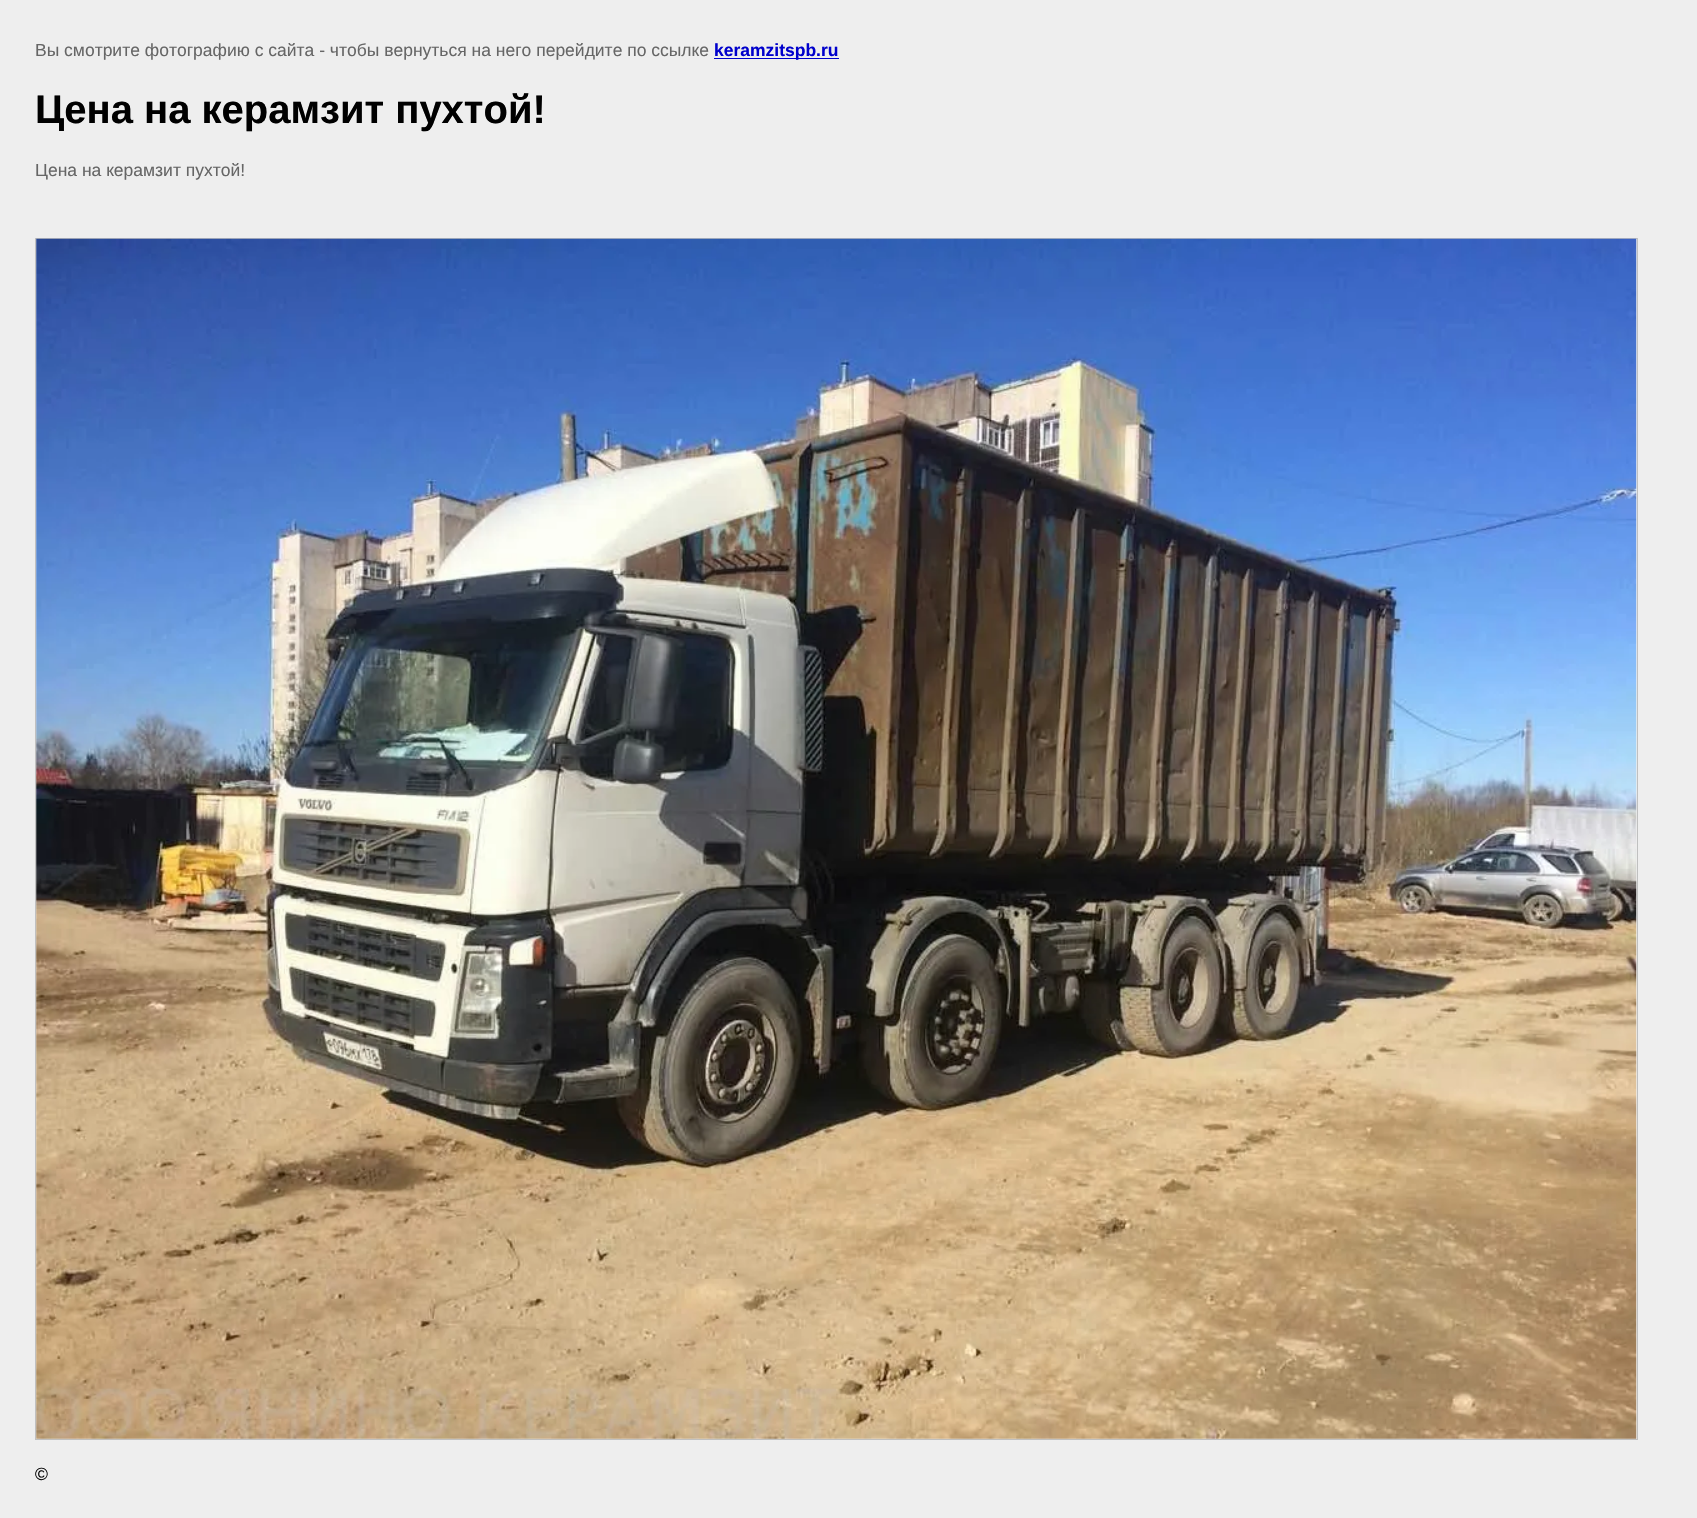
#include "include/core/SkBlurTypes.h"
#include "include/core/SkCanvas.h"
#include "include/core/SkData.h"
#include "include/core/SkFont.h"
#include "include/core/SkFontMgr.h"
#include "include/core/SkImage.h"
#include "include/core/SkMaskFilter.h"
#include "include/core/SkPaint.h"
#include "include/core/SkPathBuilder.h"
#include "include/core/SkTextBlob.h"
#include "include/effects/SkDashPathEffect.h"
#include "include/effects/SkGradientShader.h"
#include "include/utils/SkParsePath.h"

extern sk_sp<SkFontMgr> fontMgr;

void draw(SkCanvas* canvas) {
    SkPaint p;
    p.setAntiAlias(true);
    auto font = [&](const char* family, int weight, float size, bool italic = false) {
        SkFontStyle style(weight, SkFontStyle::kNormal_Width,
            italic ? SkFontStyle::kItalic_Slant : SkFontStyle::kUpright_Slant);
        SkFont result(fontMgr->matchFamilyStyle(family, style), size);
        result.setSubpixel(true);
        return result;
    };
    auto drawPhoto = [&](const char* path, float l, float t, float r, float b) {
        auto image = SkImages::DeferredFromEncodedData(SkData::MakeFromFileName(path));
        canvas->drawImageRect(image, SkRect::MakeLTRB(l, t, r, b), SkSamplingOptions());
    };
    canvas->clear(0xFFEEEEEE);
    auto font1 = font("Liberation Sans", 400, 17.5f);
    p.setColor(0xFF666666);
    canvas->drawString("Вы смотрите фотографию с сайта - чтобы вернуться на него перейдите по ссылке", 35, 56, font1, p);
    p.setColor(0xFF0000CC);
    canvas->drawRect(SkRect::MakeLTRB(714, 58, 839, 59), p);
    auto font2 = font("Liberation Sans", 700, 17.5f);
    canvas->drawString("keramzitspb.ru", 714, 56, font2, p);
    auto font3 = font("Liberation Sans", 700, 40);
    p.setColor(0xFF000000);
    canvas->drawString("Цена на керамзит пухтой!", 35, 123, font3, p);
    p.setColor(0xFF666666);
    canvas->drawString("Цена на керамзит пухтой!", 35, 176, font1, p);
    p.setStyle(SkPaint::kStroke_Style);
    p.setStrokeWidth(1);
    p.setColor(0xFFC0C0C0);
    canvas->drawRect(SkRect::MakeLTRB(35.5f, 238.5f, 1637.5f, 1439.5f), p);
    drawPhoto("media/1.png", 36, 238, 1637, 1439);
    p.setStyle(SkPaint::kFill_Style);
    p.setColor(0xFF000000);
    canvas->drawString("©", 35, 1480, font1, p);
}
